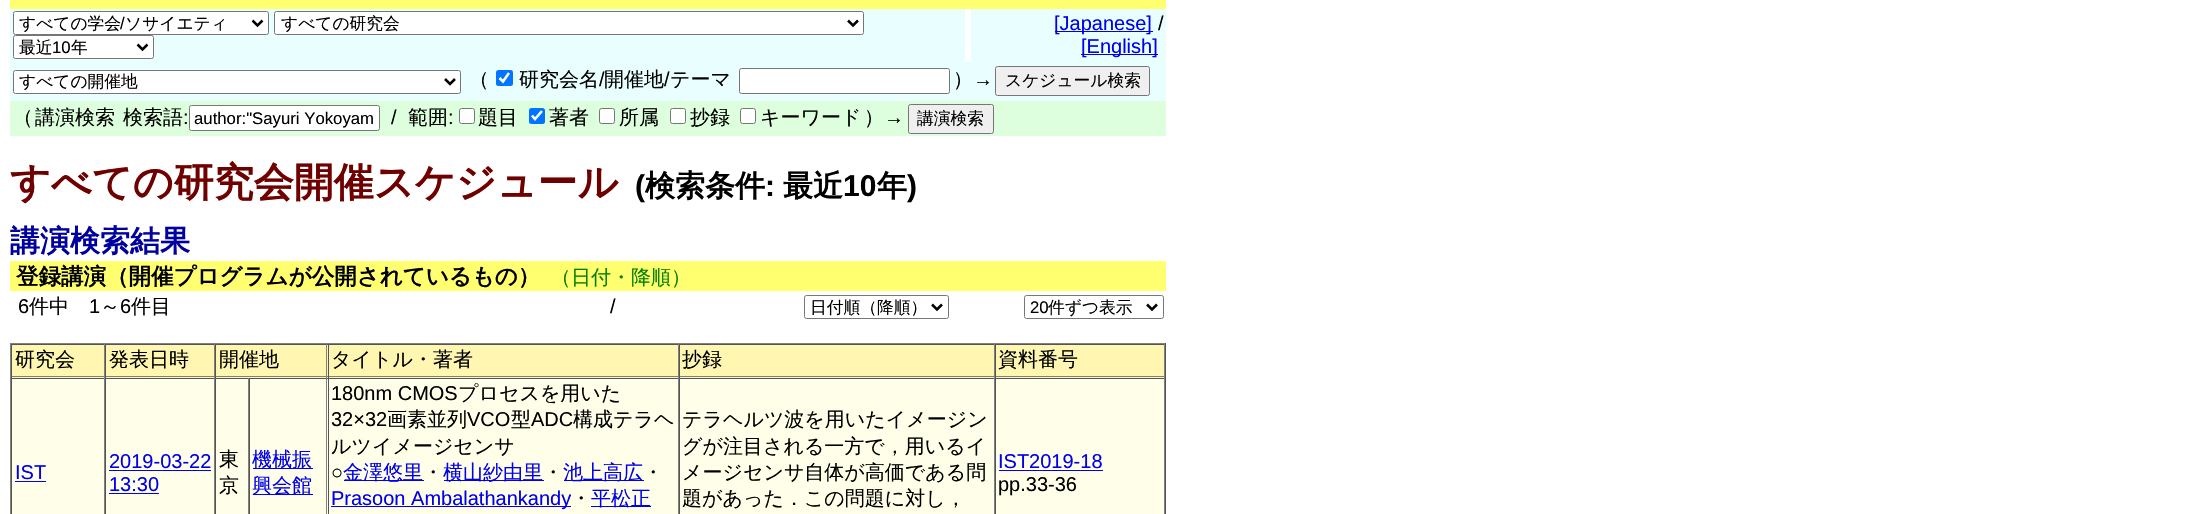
#include "include/core/SkBlurTypes.h"
#include "include/core/SkCanvas.h"
#include "include/core/SkData.h"
#include "include/core/SkFont.h"
#include "include/core/SkFontMgr.h"
#include "include/core/SkImage.h"
#include "include/core/SkMaskFilter.h"
#include "include/core/SkPaint.h"
#include "include/core/SkPathBuilder.h"
#include "include/core/SkTextBlob.h"
#include "include/effects/SkDashPathEffect.h"
#include "include/effects/SkGradientShader.h"
#include "include/utils/SkParsePath.h"

extern sk_sp<SkFontMgr> fontMgr;

void draw(SkCanvas* canvas) {
    SkPaint p;
    p.setAntiAlias(true);
    auto font = [&](const char* family, int weight, float size, bool italic = false) {
        SkFontStyle style(weight, SkFontStyle::kNormal_Width,
            italic ? SkFontStyle::kItalic_Slant : SkFontStyle::kUpright_Slant);
        SkFont result(fontMgr->matchFamilyStyle(family, style), size);
        result.setSubpixel(true);
        return result;
    };
    canvas->clear(0xFFFFFFFF);
    p.setColor(0xFFFFFF6F);
    canvas->drawRect(SkRect::MakeLTRB(10, 0, 1166, 9), p);
    p.setColor(0xFFE9FFFF);
    canvas->drawRect(SkRect::MakeLTRB(10, 9, 965, 61), p);
    p.setColor(0xFFFFFFFF);
    canvas->drawRoundRect(SkRect::MakeLTRB(13.5f, 11.5f, 268.5f, 34.5f), 2, 2, p);
    p.setStyle(SkPaint::kStroke_Style);
    p.setStrokeWidth(1);
    p.setColor(0xFF767676);
    canvas->drawRoundRect(SkRect::MakeLTRB(13.5f, 11.5f, 268.5f, 34.5f), 2, 2, p);
    p.setStrokeWidth(2.5f);
    p.setColor(0xFF000000);
    canvas->drawPath(SkPathBuilder().moveTo(252.5f, 20.5f).lineTo(257.5f, 25.5f).lineTo(262.5f, 20.5f).detach(), p);
    auto font1 = font("WenQuanYi Zen Hei", 500, 16.75f);
    p.setStyle(SkPaint::kFill_Style);
    canvas->drawString("すべての学会", 19, 29, font1, p);
    auto font2 = font("Liberation Sans", 400, 16.75f);
    canvas->drawString("/", 120, 29, font2, p);
    canvas->drawString("ソサイエティ", 125, 29, font1, p);
    p.setColor(0xFFFFFFFF);
    canvas->drawRoundRect(SkRect::MakeLTRB(274.5f, 11.5f, 863.5f, 34.5f), 2, 2, p);
    p.setStyle(SkPaint::kStroke_Style);
    p.setStrokeWidth(1);
    p.setColor(0xFF767676);
    canvas->drawRoundRect(SkRect::MakeLTRB(274.5f, 11.5f, 863.5f, 34.5f), 2, 2, p);
    p.setStrokeWidth(2.5f);
    p.setColor(0xFF000000);
    canvas->drawPath(SkPathBuilder().moveTo(848, 20.5f).lineTo(853, 25.5f).lineTo(858, 20.5f).detach(), p);
    p.setStyle(SkPaint::kFill_Style);
    canvas->drawString("すべての研究会", 281, 29, font1, p);
    p.setColor(0xFFFFFFFF);
    canvas->drawRoundRect(SkRect::MakeLTRB(13.5f, 35.5f, 153.5f, 58.5f), 2, 2, p);
    p.setStyle(SkPaint::kStroke_Style);
    p.setStrokeWidth(1);
    p.setColor(0xFF767676);
    canvas->drawRoundRect(SkRect::MakeLTRB(13.5f, 35.5f, 153.5f, 58.5f), 2, 2, p);
    p.setStrokeWidth(2.5f);
    p.setColor(0xFF000000);
    canvas->drawPath(SkPathBuilder().moveTo(137.5f, 44.5f).lineTo(142.5f, 49.5f).lineTo(147.5f, 44.5f).detach(), p);
    p.setStyle(SkPaint::kFill_Style);
    canvas->drawString("最近", 19, 53, font1, p);
    canvas->drawString("10", 52, 53, font2, p);
    canvas->drawString("年", 71, 53, font1, p);
    p.setColor(0xFFE9FFFF);
    canvas->drawRect(SkRect::MakeLTRB(971, 9, 1166, 61), p);
    p.setColor(0xFF0000EE);
    canvas->drawRect(SkRect::MakeLTRB(1055, 31, 1153, 32), p);
    auto font3 = font("Liberation Sans", 400, 20);
    canvas->drawString("[Japanese]", 1054, 30, font3, p);
    p.setColor(0xFF000000);
    canvas->drawString("/", 1158, 30, font3, p);
    p.setColor(0xFF0000EE);
    canvas->drawRect(SkRect::MakeLTRB(1081, 54, 1158, 55), p);
    canvas->drawString("[English]", 1081, 53, font3, p);
    p.setColor(0xFFE9FFFF);
    canvas->drawRect(SkRect::MakeLTRB(10, 61, 1166, 101), p);
    p.setColor(0xFFFFFFFF);
    canvas->drawRoundRect(SkRect::MakeLTRB(13.5f, 70.5f, 460.5f, 93.5f), 2, 2, p);
    p.setStyle(SkPaint::kStroke_Style);
    p.setStrokeWidth(1);
    p.setColor(0xFF767676);
    canvas->drawRoundRect(SkRect::MakeLTRB(13.5f, 70.5f, 460.5f, 93.5f), 2, 2, p);
    p.setStrokeWidth(2.5f);
    p.setColor(0xFF000000);
    canvas->drawPath(SkPathBuilder().moveTo(445, 79).lineTo(450, 84).lineTo(455, 79).detach(), p);
    p.setStyle(SkPaint::kFill_Style);
    canvas->drawString("すべての開催地", 19, 87, font1, p);
    auto font4 = font("WenQuanYi Zen Hei", 500, 20);
    canvas->drawString("（", 469, 86, font4, p);
    p.setColor(0xFF0075FF);
    canvas->drawRoundRect(SkRect::MakeLTRB(496, 70, 513, 86), 2.5f, 2.5f, p);
    p.setStyle(SkPaint::kStroke_Style);
    p.setStrokeWidth(2.6f);
    p.setColor(0xFFFFFFFF);
    canvas->drawPath(SkPathBuilder().moveTo(499.5f, 78).lineTo(503, 81.5f).lineTo(509, 73).detach(), p);
    p.setStyle(SkPaint::kFill_Style);
    p.setColor(0xFF000000);
    canvas->drawString("研究会名", 519, 86, font4, p);
    canvas->drawString("/", 599, 86, font3, p);
    canvas->drawString("開催地", 604, 86, font4, p);
    canvas->drawString("/", 664, 86, font3, p);
    canvas->drawString("テーマ", 670, 86, font4, p);
    p.setColor(0xFFFFFFFF);
    canvas->drawRoundRect(SkRect::MakeLTRB(739.5f, 68.5f, 949.5f, 93.5f), 2, 2, p);
    p.setStyle(SkPaint::kStroke_Style);
    p.setStrokeWidth(1);
    p.setColor(0xFF767676);
    canvas->drawRoundRect(SkRect::MakeLTRB(739.5f, 68.5f, 949.5f, 93.5f), 2, 2, p);
    p.setStyle(SkPaint::kFill_Style);
    p.setColor(0xFF000000);
    canvas->drawString("）", 953, 86, font4, p);
    canvas->drawString("→", 973, 86, font3, p);
    p.setColor(0xFFEFEFEF);
    canvas->drawRoundRect(SkRect::MakeLTRB(995.5f, 66.5f, 1149.5f, 95.5f), 2, 2, p);
    p.setStyle(SkPaint::kStroke_Style);
    p.setColor(0xFF767676);
    canvas->drawRoundRect(SkRect::MakeLTRB(995.5f, 66.5f, 1149.5f, 95.5f), 2, 2, p);
    p.setStyle(SkPaint::kFill_Style);
    p.setColor(0xFF000000);
    canvas->drawString("スケジュール検索", 1005, 86, font1, p);
    p.setColor(0xFFDEFFDE);
    canvas->drawRect(SkRect::MakeLTRB(10, 101, 1166, 136), p);
    p.setColor(0xFF000000);
    {
        const struct { const char* s; float x, y; } items[] = {
            {"（", 13, 124},
            {"講演検索", 35, 124},
            {"検索語", 123, 124},
        };
        for (auto [s, x, y] : items) {
            canvas->drawString(s, x, y, font4, p);
        }
    }
    canvas->drawString(":", 183, 124, font3, p);
    p.setColor(0xFFFFFFFF);
    canvas->drawRoundRect(SkRect::MakeLTRB(189.5f, 105.5f, 379.5f, 130.5f), 2, 2, p);
    p.setStyle(SkPaint::kStroke_Style);
    p.setColor(0xFF767676);
    canvas->drawRoundRect(SkRect::MakeLTRB(189.5f, 105.5f, 379.5f, 130.5f), 2, 2, p);
    p.setStyle(SkPaint::kFill_Style);
    p.setColor(0xFF000000);
    canvas->drawString("author:\"Sayuri Yokoyam", 194, 124, font2, p);
    canvas->drawString("/", 391, 124, font3, p);
    canvas->drawString("範囲", 408, 124, font4, p);
    canvas->drawString(":", 448, 124, font3, p);
    p.setColor(0xFFFFFFFF);
    canvas->drawRoundRect(SkRect::MakeLTRB(459.5f, 108.5f, 474.5f, 123.5f), 2, 2, p);
    p.setStyle(SkPaint::kStroke_Style);
    p.setColor(0xFF767676);
    canvas->drawRoundRect(SkRect::MakeLTRB(459.5f, 108.5f, 474.5f, 123.5f), 2, 2, p);
    p.setStyle(SkPaint::kFill_Style);
    p.setColor(0xFF000000);
    canvas->drawString("題目", 478, 124, font4, p);
    p.setColor(0xFF0075FF);
    canvas->drawRoundRect(SkRect::MakeLTRB(529, 108, 545, 124), 2.5f, 2.5f, p);
    p.setStyle(SkPaint::kStroke_Style);
    p.setStrokeWidth(2.6f);
    p.setColor(0xFFFFFFFF);
    canvas->drawPath(SkPathBuilder().moveTo(532, 115.5f).lineTo(535, 119).lineTo(542, 111).detach(), p);
    p.setStyle(SkPaint::kFill_Style);
    p.setColor(0xFF000000);
    canvas->drawString("著者", 549, 124, font4, p);
    p.setColor(0xFFFFFFFF);
    canvas->drawRoundRect(SkRect::MakeLTRB(599.5f, 108.5f, 614.5f, 123.5f), 2, 2, p);
    p.setStyle(SkPaint::kStroke_Style);
    p.setStrokeWidth(1);
    p.setColor(0xFF767676);
    canvas->drawRoundRect(SkRect::MakeLTRB(599.5f, 108.5f, 614.5f, 123.5f), 2, 2, p);
    p.setStyle(SkPaint::kFill_Style);
    p.setColor(0xFF000000);
    canvas->drawString("所属", 619, 124, font4, p);
    p.setColor(0xFFFFFFFF);
    canvas->drawRoundRect(SkRect::MakeLTRB(670.5f, 108.5f, 685.5f, 123.5f), 2, 2, p);
    p.setStyle(SkPaint::kStroke_Style);
    p.setColor(0xFF767676);
    canvas->drawRoundRect(SkRect::MakeLTRB(670.5f, 108.5f, 685.5f, 123.5f), 2, 2, p);
    p.setStyle(SkPaint::kFill_Style);
    p.setColor(0xFF000000);
    canvas->drawString("抄録", 690, 124, font4, p);
    p.setColor(0xFFFFFFFF);
    canvas->drawRoundRect(SkRect::MakeLTRB(740.5f, 108.5f, 755.5f, 123.5f), 2, 2, p);
    p.setStyle(SkPaint::kStroke_Style);
    p.setColor(0xFF767676);
    canvas->drawRoundRect(SkRect::MakeLTRB(740.5f, 108.5f, 755.5f, 123.5f), 2, 2, p);
    p.setStyle(SkPaint::kFill_Style);
    p.setColor(0xFF000000);
    canvas->drawString("キーワード", 760, 124, font4, p);
    canvas->drawString("）", 864, 124, font4, p);
    canvas->drawString("→", 884, 124, font3, p);
    p.setColor(0xFFEFEFEF);
    canvas->drawRoundRect(SkRect::MakeLTRB(908.5f, 104.5f, 993.5f, 133.5f), 2, 2, p);
    p.setStyle(SkPaint::kStroke_Style);
    p.setColor(0xFF767676);
    canvas->drawRoundRect(SkRect::MakeLTRB(908.5f, 104.5f, 993.5f, 133.5f), 2, 2, p);
    p.setStyle(SkPaint::kFill_Style);
    p.setColor(0xFF000000);
    canvas->drawString("講演検索", 917, 124, font1, p);
    auto font5 = font("WenQuanYi Zen Hei", 700, 40);
    p.setColor(0xFF700000);
    canvas->drawString("すべての研究会開催スケジュール", 10, 196, font5, p);
    auto font6 = font("Liberation Sans", 700, 30);
    p.setColor(0xFF000000);
    canvas->drawString("(", 635, 196, font6, p);
    auto font7 = font("WenQuanYi Zen Hei", 700, 30);
    canvas->drawString("検索条件", 645, 196, font7, p);
    canvas->drawString(":", 765, 196, font6, p);
    canvas->drawString("最近", 783, 196, font7, p);
    canvas->drawString("10", 843, 196, font6, p);
    canvas->drawString("年", 877, 196, font7, p);
    canvas->drawString(")", 907, 196, font6, p);
    p.setColor(0xFF0000A0);
    canvas->drawString("講演検索結果", 10, 251, font7, p);
    p.setColor(0xFFFFFF6F);
    canvas->drawRect(SkRect::MakeLTRB(10, 261, 1166, 291), p);
    auto font8 = font("WenQuanYi Zen Hei", 700, 22.5f);
    p.setColor(0xFF000000);
    canvas->drawString("登録講演（開催プログラムが公開されているもの）", 16, 284, font8, p);
    p.setColor(0xFF008000);
    canvas->drawString("（日付・降順）", 551, 284, font4, p);
    p.setColor(0xFF000000);
    canvas->drawString("6", 18, 313, font3, p);
    canvas->drawString("件中", 29, 313, font4, p);
    canvas->drawString("1", 89, 313, font3, p);
    canvas->drawString("～", 100, 313, font4, p);
    canvas->drawString("6", 120, 313, font3, p);
    canvas->drawString("件目", 131, 313, font4, p);
    canvas->drawString("/", 610, 313, font3, p);
    p.setStyle(SkPaint::kStroke_Style);
    p.setColor(0xFF767676);
    canvas->drawRoundRect(SkRect::MakeLTRB(804.5f, 295.5f, 948.5f, 318.5f), 2, 2, p);
    p.setStrokeWidth(2.5f);
    p.setColor(0xFF000000);
    canvas->drawPath(SkPathBuilder().moveTo(932, 304.5f).lineTo(937, 309.5f).lineTo(942, 304.5f).detach(), p);
    p.setStyle(SkPaint::kFill_Style);
    canvas->drawString("日付順（降順）", 810, 313, font1, p);
    p.setStyle(SkPaint::kStroke_Style);
    p.setStrokeWidth(1);
    p.setColor(0xFF767676);
    canvas->drawRoundRect(SkRect::MakeLTRB(1024.5f, 295.5f, 1163.5f, 318.5f), 2, 2, p);
    p.setStrokeWidth(2.5f);
    p.setColor(0xFF000000);
    canvas->drawPath(SkPathBuilder().moveTo(1147, 304.5f).lineTo(1152, 309.5f).lineTo(1157, 304.5f).detach(), p);
    p.setStyle(SkPaint::kFill_Style);
    canvas->drawString("20", 1030, 313, font2, p);
    canvas->drawString("件ずつ表示", 1048, 313, font1, p);
    {
        const struct { float l, t, r, b; SkColor color; } items[] = {
            {10, 343, 1166, 344, 0xFF808080},
            {1165, 343, 1166, 514, 0xFF555555},
            {10, 343, 11, 514, 0xFF808080},
            {12, 345, 104, 378, 0xFFFFF6B1},
            {11, 344, 1165, 345, 0xFF555555},
            {104, 344, 105, 378, 0xFF808080},
            {11, 376, 105, 377, 0xFF808080},
            {11, 344, 12, 378, 0xFF555555},
        };
        for (auto [l, t, r, b, color] : items) {
            p.setColor(color);
            canvas->drawRect(SkRect::MakeLTRB(l, t, r, b), p);
        }
    }
    p.setColor(0xFF000000);
    canvas->drawString("研究会", 15, 366, font4, p);
    {
        const struct { float l, t, r, b; SkColor color; } items[] = {
            {106, 345, 214, 378, 0xFFFFF6B1},
            {214, 344, 215, 378, 0xFF808080},
            {105, 376, 215, 377, 0xFF808080},
            {105, 344, 106, 378, 0xFF555555},
        };
        for (auto [l, t, r, b, color] : items) {
            p.setColor(color);
            canvas->drawRect(SkRect::MakeLTRB(l, t, r, b), p);
        }
    }
    p.setColor(0xFF000000);
    canvas->drawString("発表日時", 109, 366, font4, p);
    {
        const struct { float l, t, r, b; SkColor color; } items[] = {
            {216, 345, 328, 378, 0xFFFFF6B1},
            {326, 344, 327, 378, 0xFF808080},
            {215, 376, 328, 377, 0xFF808080},
            {215, 344, 216, 378, 0xFF555555},
        };
        for (auto [l, t, r, b, color] : items) {
            p.setColor(color);
            canvas->drawRect(SkRect::MakeLTRB(l, t, r, b), p);
        }
    }
    p.setColor(0xFF000000);
    canvas->drawString("開催地", 219, 366, font4, p);
    {
        const struct { float l, t, r, b; SkColor color; } items[] = {
            {329, 345, 678, 378, 0xFFFFF6B1},
            {678, 344, 679, 378, 0xFF808080},
            {328, 376, 679, 377, 0xFF808080},
            {328, 344, 329, 378, 0xFF555555},
        };
        for (auto [l, t, r, b, color] : items) {
            p.setColor(color);
            canvas->drawRect(SkRect::MakeLTRB(l, t, r, b), p);
        }
    }
    p.setColor(0xFF000000);
    canvas->drawString("タイトル・著者", 331, 366, font4, p);
    {
        const struct { float l, t, r, b; SkColor color; } items[] = {
            {680, 345, 994, 378, 0xFFFFF6B1},
            {994, 344, 995, 378, 0xFF808080},
            {679, 376, 995, 377, 0xFF808080},
            {679, 344, 680, 378, 0xFF555555},
        };
        for (auto [l, t, r, b, color] : items) {
            p.setColor(color);
            canvas->drawRect(SkRect::MakeLTRB(l, t, r, b), p);
        }
    }
    p.setColor(0xFF000000);
    canvas->drawString("抄録", 682, 366, font4, p);
    {
        const struct { float l, t, r, b; SkColor color; } items[] = {
            {996, 345, 1164, 378, 0xFFFFF6B1},
            {1164, 344, 1165, 378, 0xFF808080},
            {995, 376, 1165, 377, 0xFF808080},
            {995, 344, 996, 378, 0xFF555555},
        };
        for (auto [l, t, r, b, color] : items) {
            p.setColor(color);
            canvas->drawRect(SkRect::MakeLTRB(l, t, r, b), p);
        }
    }
    p.setColor(0xFF000000);
    canvas->drawString("資料番号", 998, 366, font4, p);
    {
        const struct { float l, t, r, b; SkColor color; } items[] = {
            {12, 379, 104, 514, 0xFFFFFFE9},
            {11, 378, 1165, 379, 0xFF555555},
            {104, 378, 105, 514, 0xFF808080},
            {11, 378, 12, 514, 0xFF555555},
        };
        for (auto [l, t, r, b, color] : items) {
            p.setColor(color);
            canvas->drawRect(SkRect::MakeLTRB(l, t, r, b), p);
        }
    }
    p.setColor(0xFF0000EE);
    canvas->drawString("IST", 15, 479, font3, p);
    {
        const struct { float l, t, r, b; SkColor color; } items[] = {
            {15, 481, 46, 482, 0xFF0000EE},
            {106, 379, 214, 514, 0xFFFFFFE9},
            {214, 378, 215, 514, 0xFF808080},
            {105, 378, 106, 514, 0xFF555555},
        };
        for (auto [l, t, r, b, color] : items) {
            p.setColor(color);
            canvas->drawRect(SkRect::MakeLTRB(l, t, r, b), p);
        }
    }
    p.setColor(0xFF0000EE);
    canvas->drawString("2019-03-22", 109, 468, font3, p);
    canvas->drawRect(SkRect::MakeLTRB(109, 470, 211, 471), p);
    canvas->drawString("13:30", 109, 491, font3, p);
    {
        const struct { float l, t, r, b; SkColor color; } items[] = {
            {109, 493, 159, 494, 0xFF0000EE},
            {216, 379, 248, 514, 0xFFFFFFE9},
            {248, 378, 249, 514, 0xFF808080},
            {215, 378, 216, 514, 0xFF555555},
        };
        for (auto [l, t, r, b, color] : items) {
            p.setColor(color);
            canvas->drawRect(SkRect::MakeLTRB(l, t, r, b), p);
        }
    }
    p.setColor(0xFF000000);
    canvas->drawString("東", 219, 466, font4, p);
    canvas->drawString("京", 219, 492, font4, p);
    {
        const struct { float l, t, r, b; SkColor color; } items[] = {
            {250, 379, 328, 514, 0xFFFFFFE9},
            {326, 378, 327, 514, 0xFF808080},
            {249, 378, 250, 514, 0xFF555555},
            {253, 468, 313, 469, 0xFF0000EE},
        };
        for (auto [l, t, r, b, color] : items) {
            p.setColor(color);
            canvas->drawRect(SkRect::MakeLTRB(l, t, r, b), p);
        }
    }
    canvas->drawString("機械振", 252, 466, font4, p);
    canvas->drawRect(SkRect::MakeLTRB(253, 494, 313, 495), p);
    canvas->drawString("興会館", 252, 492, font4, p);
    {
        const struct { float l, t, r, b; SkColor color; } items[] = {
            {329, 379, 678, 514, 0xFFFFFFE9},
            {678, 378, 679, 514, 0xFF808080},
            {328, 378, 329, 514, 0xFF555555},
        };
        for (auto [l, t, r, b, color] : items) {
            p.setColor(color);
            canvas->drawRect(SkRect::MakeLTRB(l, t, r, b), p);
        }
    }
    p.setColor(0xFF000000);
    canvas->drawString("180nm CMOS", 331, 400, font3, p);
    canvas->drawString("プロセスを用いた", 458, 400, font4, p);
    canvas->drawString("32×32", 331, 426, font3, p);
    canvas->drawString("画素並列", 387, 426, font4, p);
    canvas->drawString("VCO", 467, 426, font3, p);
    canvas->drawString("型", 511, 426, font4, p);
    canvas->drawString("ADC", 531, 426, font3, p);
    canvas->drawString("構成テラヘ", 573, 426, font4, p);
    canvas->drawString("ルツイメージセンサ", 331, 453, font4, p);
    canvas->drawString("○", 331, 479, font3, p);
    p.setColor(0xFF0000EE);
    canvas->drawRect(SkRect::MakeLTRB(344, 480, 424, 481), p);
    canvas->drawString("金澤悠里", 343, 479, font4, p);
    p.setColor(0xFF000000);
    canvas->drawString("・", 423, 479, font4, p);
    p.setColor(0xFF0000EE);
    canvas->drawRect(SkRect::MakeLTRB(444, 480, 544, 481), p);
    canvas->drawString("横山紗由里", 443, 479, font4, p);
    p.setColor(0xFF000000);
    canvas->drawString("・", 543, 479, font4, p);
    p.setColor(0xFF0000EE);
    canvas->drawRect(SkRect::MakeLTRB(564, 480, 644, 481), p);
    canvas->drawString("池上高広", 563, 479, font4, p);
    p.setColor(0xFF000000);
    canvas->drawString("・", 643, 479, font4, p);
    p.setColor(0xFF0000EE);
    canvas->drawRect(SkRect::MakeLTRB(331, 506, 571, 507), p);
    canvas->drawString("Prasoon Ambalathankandy", 331, 505, font3, p);
    p.setColor(0xFF000000);
    canvas->drawString("・", 571, 505, font4, p);
    p.setColor(0xFF0000EE);
    canvas->drawRect(SkRect::MakeLTRB(591, 506, 651, 507), p);
    canvas->drawString("平松正", 591, 505, font4, p);
    {
        const struct { float l, t, r, b; SkColor color; } items[] = {
            {680, 379, 994, 514, 0xFFFFFFE9},
            {994, 378, 995, 514, 0xFF808080},
            {679, 378, 680, 514, 0xFF555555},
        };
        for (auto [l, t, r, b, color] : items) {
            p.setColor(color);
            canvas->drawRect(SkRect::MakeLTRB(l, t, r, b), p);
        }
    }
    p.setColor(0xFF000000);
    {
        const struct { const char* s; float x, y; } items[] = {
            {"テラヘルツ波を用いたイメージン", 682, 426},
            {"グが注目される一方で，用いるイ", 682, 453},
            {"メージセンサ自体が高価である問", 682, 479},
            {"題があった．この問題に対し，", 682, 505},
        };
        for (auto [s, x, y] : items) {
            canvas->drawString(s, x, y, font4, p);
        }
    }
    {
        const struct { float l, t, r, b; SkColor color; } items[] = {
            {996, 379, 1164, 514, 0xFFFFFFE9},
            {1164, 378, 1165, 514, 0xFF808080},
            {995, 378, 996, 514, 0xFF555555},
        };
        for (auto [l, t, r, b, color] : items) {
            p.setColor(color);
            canvas->drawRect(SkRect::MakeLTRB(l, t, r, b), p);
        }
    }
    p.setColor(0xFF0000EE);
    canvas->drawString("IST2019-18", 998, 468, font3, p);
    canvas->drawRect(SkRect::MakeLTRB(999, 470, 1103, 471), p);
    p.setColor(0xFF000000);
    canvas->drawString("pp.33-36", 998, 491, font3, p);
}
